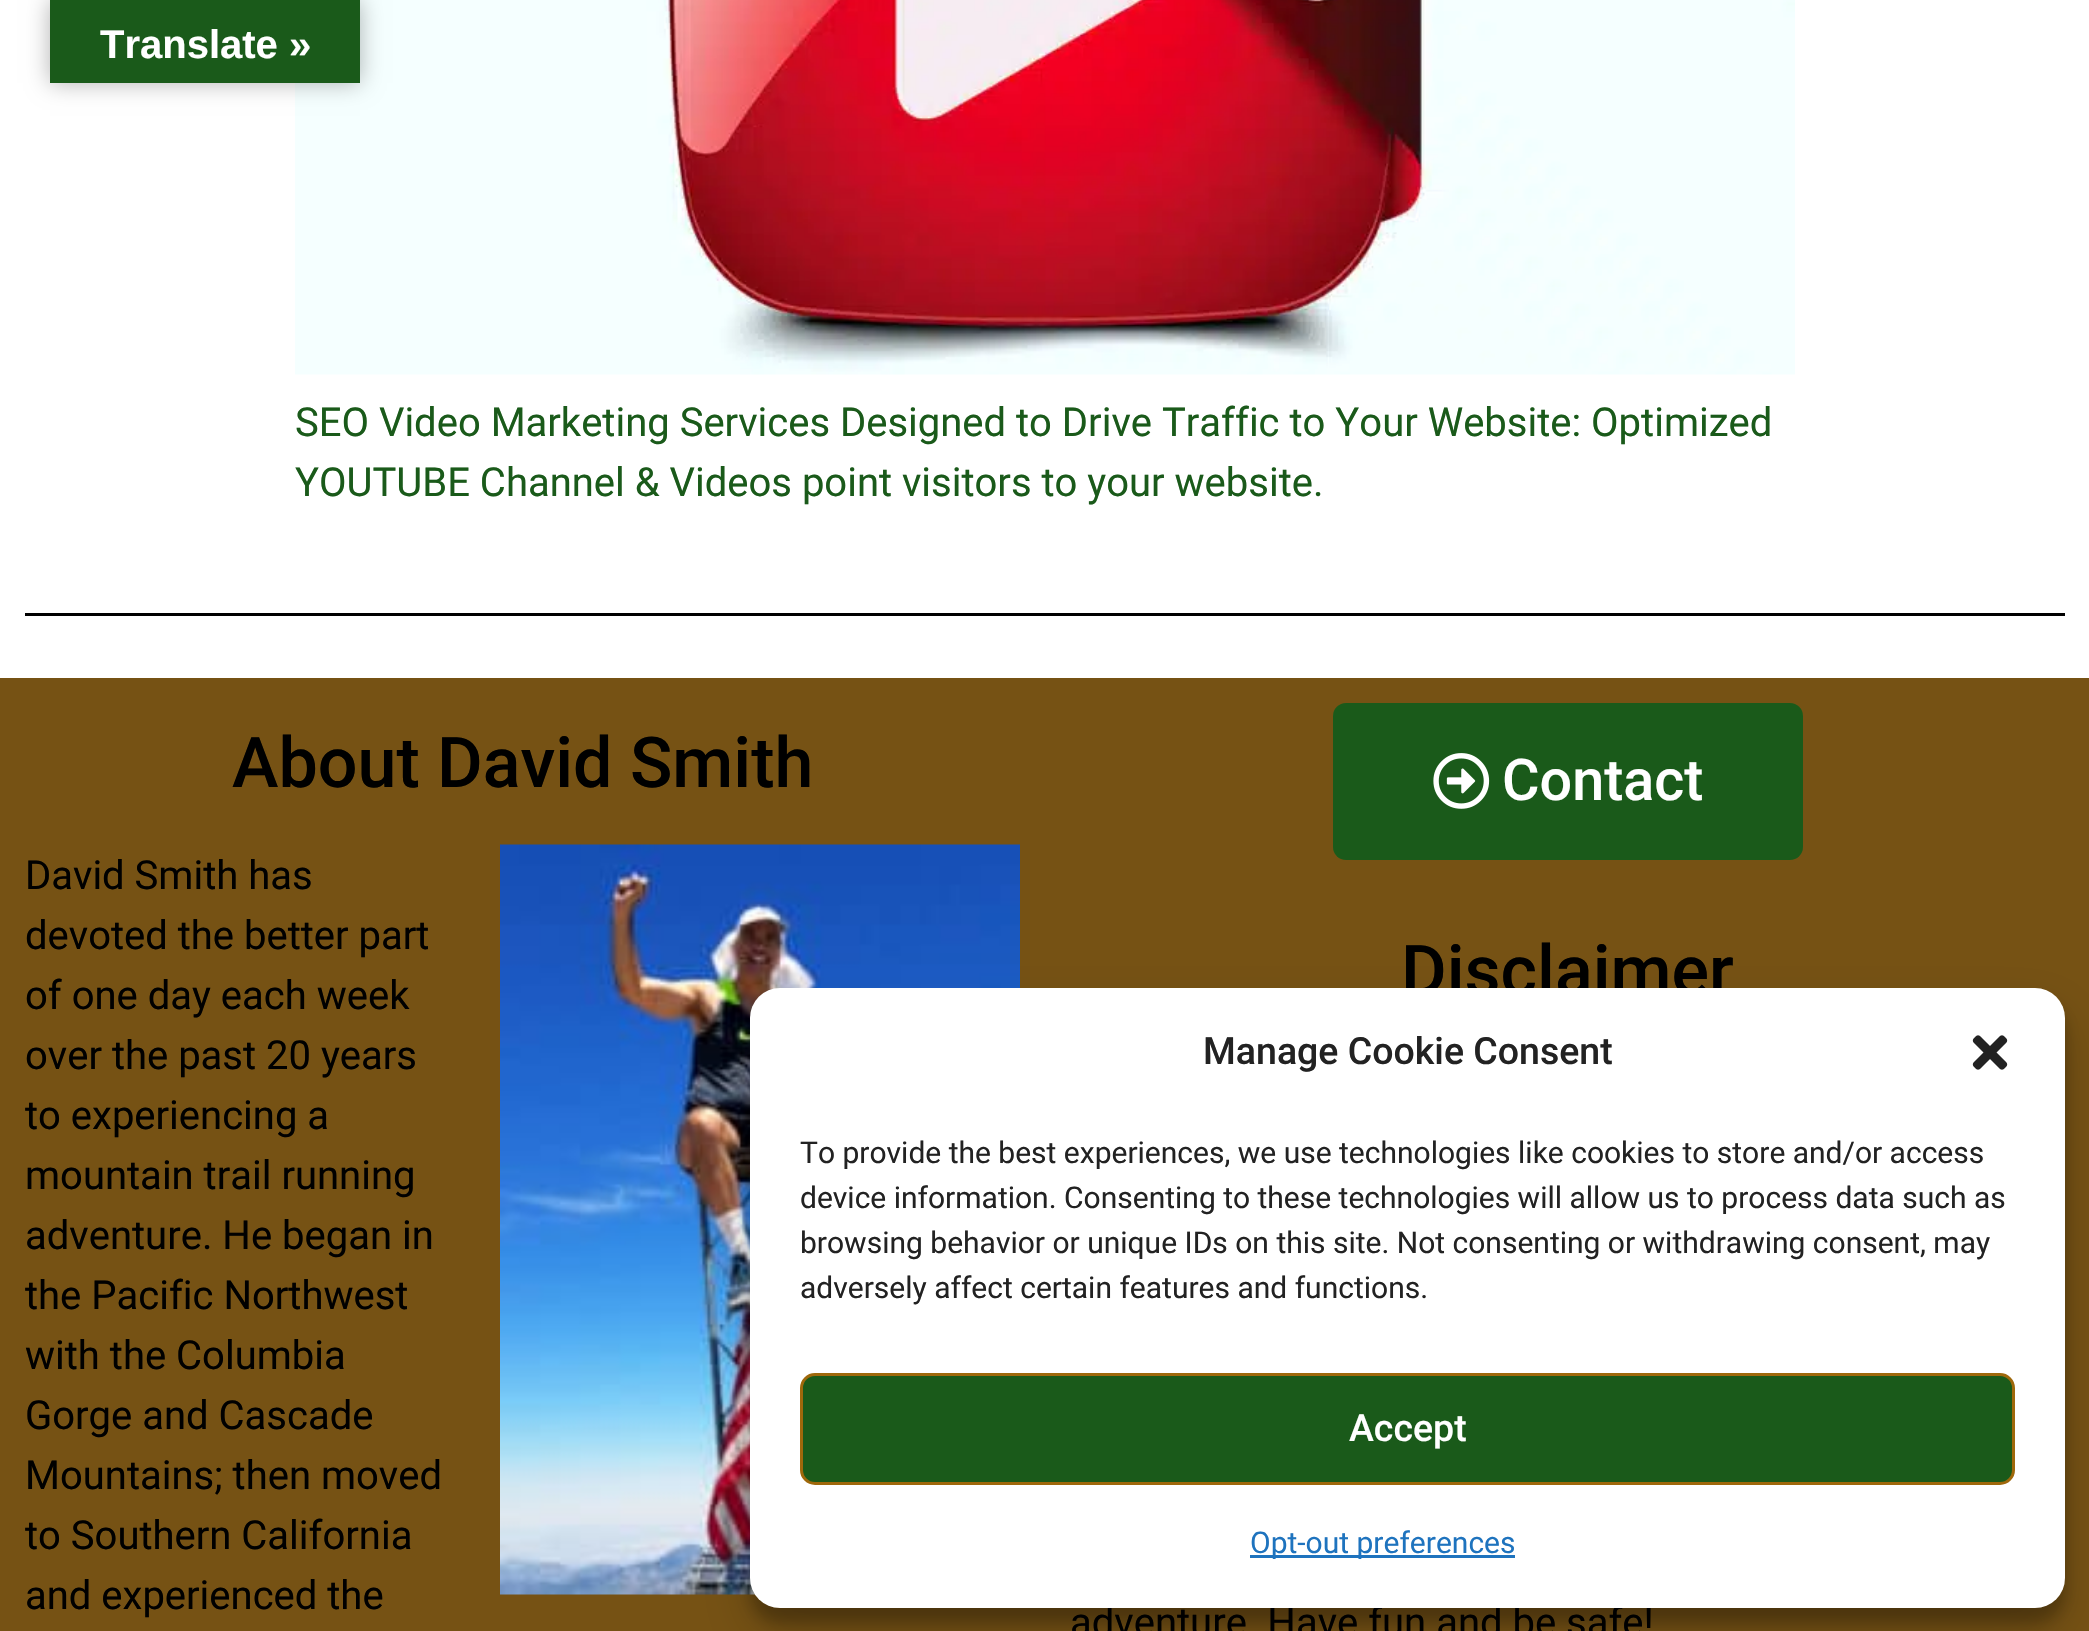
#include "include/core/SkBlurTypes.h"
#include "include/core/SkCanvas.h"
#include "include/core/SkData.h"
#include "include/core/SkFont.h"
#include "include/core/SkFontMgr.h"
#include "include/core/SkImage.h"
#include "include/core/SkMaskFilter.h"
#include "include/core/SkPaint.h"
#include "include/core/SkPathBuilder.h"
#include "include/core/SkTextBlob.h"
#include "include/effects/SkDashPathEffect.h"
#include "include/effects/SkGradientShader.h"
#include "include/utils/SkParsePath.h"

extern sk_sp<SkFontMgr> fontMgr;

void draw(SkCanvas* canvas) {
    SkPaint p;
    p.setAntiAlias(true);
    auto font = [&](const char* family, int weight, float size, bool italic = false) {
        SkFontStyle style(weight, SkFontStyle::kNormal_Width,
            italic ? SkFontStyle::kItalic_Slant : SkFontStyle::kUpright_Slant);
        SkFont result(fontMgr->matchFamilyStyle(family, style), size);
        result.setSubpixel(true);
        return result;
    };
    auto drawPhoto = [&](const char* path, float l, float t, float r, float b) {
        auto image = SkImages::DeferredFromEncodedData(SkData::MakeFromFileName(path));
        canvas->drawImageRect(image, SkRect::MakeLTRB(l, t, r, b), SkSamplingOptions());
    };
    canvas->clear(0xFFFFFFFF);
    drawPhoto("media/1.png", 295, 0, 1795, 375);
    p.setColor(0x4D000000);
    p.setMaskFilter(SkMaskFilter::MakeBlur(kNormal_SkBlurStyle, 11));
    canvas->drawRect(SkRect::MakeLTRB(50, 0, 360, 83), p);
    p.setMaskFilter(nullptr);
    p.setColor(0xFF1A5A1A);
    canvas->drawRect(SkRect::MakeLTRB(50, 0, 360, 83), p);
    auto font1 = font("Liberation Sans", 700, 40);
    p.setColor(0xFFFFFFFF);
    canvas->drawString("Translate »", 100, 58, font1, p);
    auto font2 = font("Roboto", 400, 40);
    p.setColor(0xFF1A5A1A);
    canvas->drawString("SEO Video Marketing Services Designed to Drive Traffic to Your Website: Optimized", 295, 436, font2, p);
    canvas->drawString("YOUTUBE Channel & Videos point visitors to your website.", 295, 496, font2, p);
    p.setColor(0xFF000000);
    canvas->drawRect(SkRect::MakeLTRB(25, 613, 2065, 616), p);
    p.setColor(0xFF765214);
    canvas->drawRect(SkRect::MakeLTRB(0, 678, 2089, 1631), p);
    auto font3 = font("Roboto", 500, 70);
    p.setColor(0xFF000000);
    canvas->drawString("About David Smith", 232, 787, font3, p);
    canvas->drawString("David Smith has", 25, 889, font2, p);
    drawPhoto("media/2.png", 500, 844, 1020, 1595);
    {
        const struct { const char* s; float x, y; } items[] = {
            {"devoted the better part", 25, 949},
            {"of one day each week", 25, 1009},
            {"over the past 20 years", 25, 1069},
            {"to experiencing a", 25, 1129},
            {"mountain trail running", 25, 1189},
            {"adventure. He began in", 25, 1249},
            {"the Pacific Northwest", 25, 1309},
            {"with the Columbia", 25, 1369},
            {"Gorge and Cascade", 25, 1429},
            {"Mountains; then moved", 25, 1489},
            {"to Southern California", 25, 1549},
            {"and experienced the", 25, 1609},
        };
        for (auto [s, x, y] : items) {
            canvas->drawString(s, x, y, font2, p);
        }
    }
    p.setColor(0xFF1A5A1A);
    canvas->drawRoundRect(SkRect::MakeLTRB(1333, 703, 1803, 860), 13, 13, p);
    drawPhoto("media/3.png", 1433, 753, 1490, 809);
    auto font4 = font("Roboto", 500, 57.5f);
    p.setColor(0xFFFFFFFF);
    canvas->drawString("Contact", 1502, 800, font4, p);
    p.setColor(0xFF000000);
    canvas->drawString("Disclaimer", 1401, 995, font3, p);
    canvas->drawString("adventure. Have fun and be safe!", 1070, 1636, font2, p);
    p.setColor(0x3B000000);
    p.setMaskFilter(SkMaskFilter::MakeBlur(kNormal_SkBlurStyle, 7.5f));
    canvas->drawRoundRect(SkRect::MakeLTRB(750, 1003, 2065, 1623), 30, 30, p);
    p.setMaskFilter(nullptr);
    p.setColor(0x30000000);
    p.setMaskFilter(SkMaskFilter::MakeBlur(kNormal_SkBlurStyle, 25));
    canvas->drawRoundRect(SkRect::MakeLTRB(750, 1013, 2065, 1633), 30, 30, p);
    p.setMaskFilter(nullptr);
    p.setColor(0xFFFFFFFF);
    canvas->drawRoundRect(SkRect::MakeLTRB(750, 988, 2065, 1608), 30, 30, p);
    auto font5 = font("Roboto", 500, 37.5f);
    p.setColor(0xFF222222);
    canvas->drawString("Manage Cookie Consent", 1203, 1064, font5, p);
    drawPhoto("media/4.png", 1972, 1035, 2008, 1070);
    auto font6 = font("Roboto", 400, 30);
    {
        const struct { const char* s; float x, y; } items[] = {
            {"To provide the best experiences, we use technologies like cookies to store and/or access", 800, 1163},
            {"device information. Consenting to these technologies will allow us to process data such as", 800, 1208},
            {"browsing behavior or unique IDs on this site. Not consenting or withdrawing consent, may", 800, 1253},
            {"adversely affect certain features and functions.", 800, 1298},
        };
        for (auto [s, x, y] : items) {
            canvas->drawString(s, x, y, font6, p);
        }
    }
    p.setColor(0xFF1A5A1A);
    canvas->drawRoundRect(SkRect::MakeLTRB(801.5f, 1374.5f, 2013.5f, 1483.5f), 13.5f, 13.5f, p);
    p.setStyle(SkPaint::kStroke_Style);
    p.setStrokeWidth(3);
    p.setColor(0xFF9F680B);
    canvas->drawRoundRect(SkRect::MakeLTRB(801.5f, 1374.5f, 2013.5f, 1483.5f), 13.5f, 13.5f, p);
    p.setStyle(SkPaint::kFill_Style);
    p.setColor(0xFFFFFFFF);
    canvas->drawString("Accept", 1349, 1441, font5, p);
    p.setColor(0xFF1E73BE);
    canvas->drawRect(SkRect::MakeLTRB(1250, 1555, 1515, 1558), p);
    canvas->drawString("Opt-out preferences", 1250, 1553, font6, p);
}
